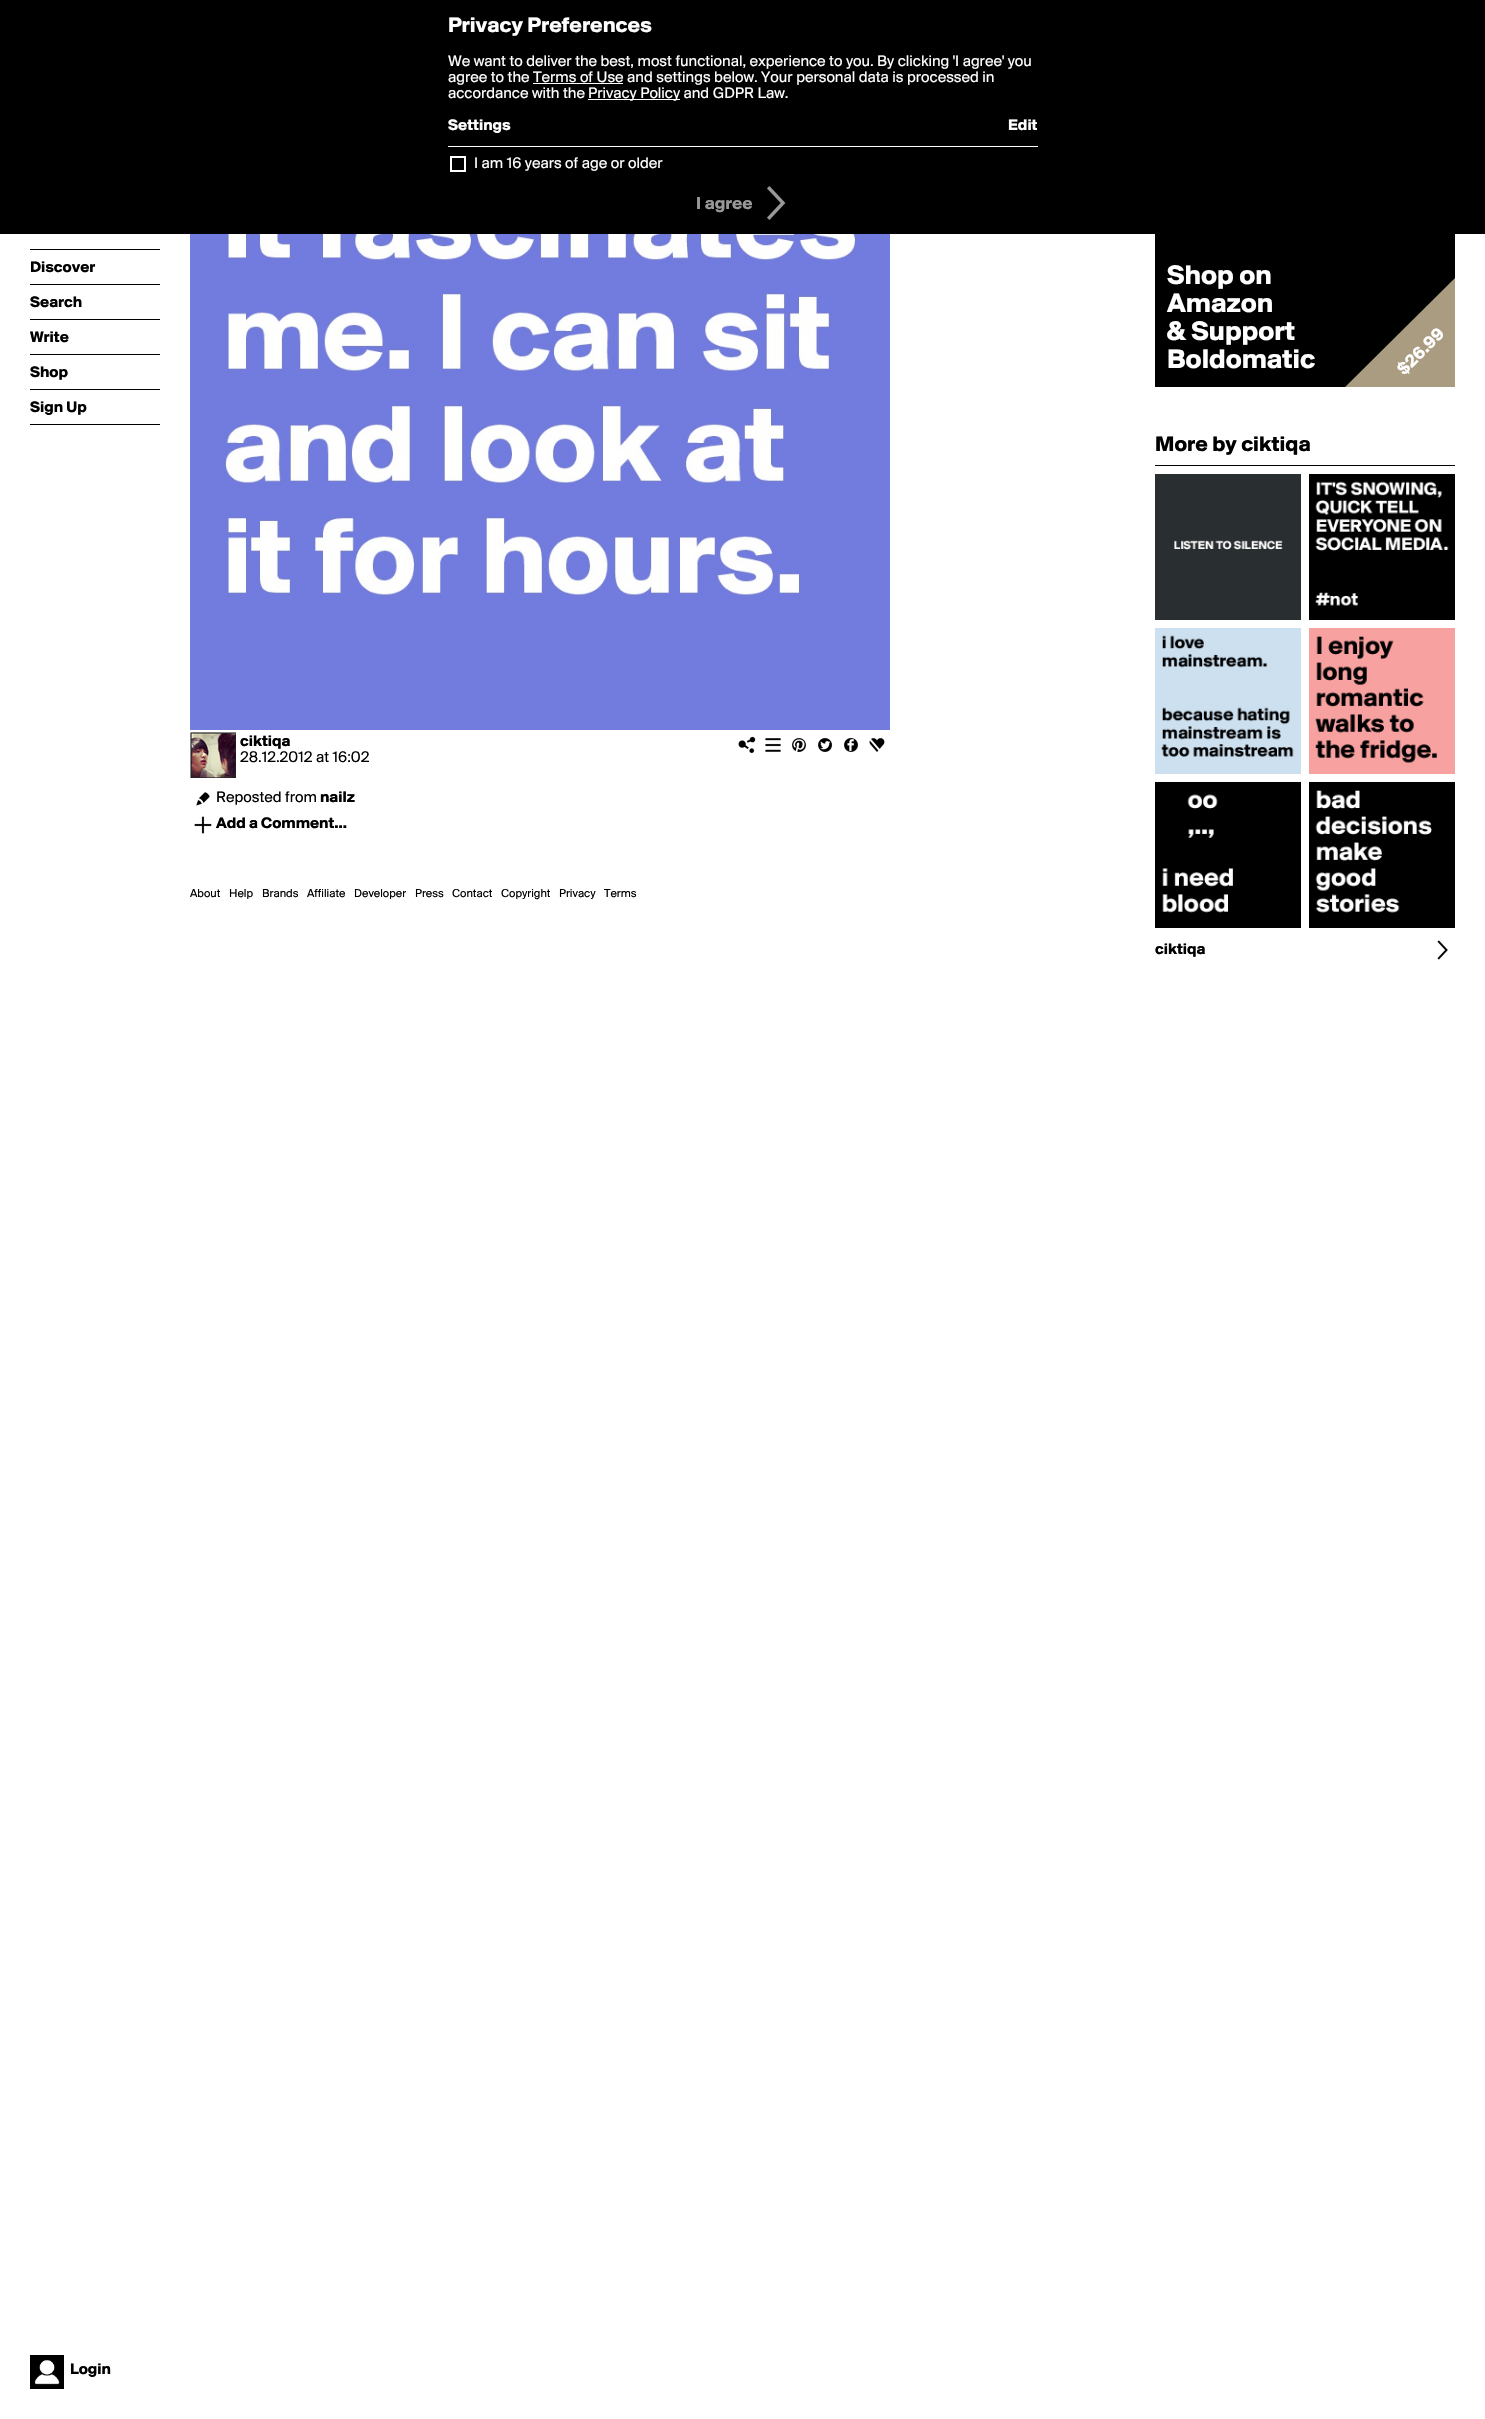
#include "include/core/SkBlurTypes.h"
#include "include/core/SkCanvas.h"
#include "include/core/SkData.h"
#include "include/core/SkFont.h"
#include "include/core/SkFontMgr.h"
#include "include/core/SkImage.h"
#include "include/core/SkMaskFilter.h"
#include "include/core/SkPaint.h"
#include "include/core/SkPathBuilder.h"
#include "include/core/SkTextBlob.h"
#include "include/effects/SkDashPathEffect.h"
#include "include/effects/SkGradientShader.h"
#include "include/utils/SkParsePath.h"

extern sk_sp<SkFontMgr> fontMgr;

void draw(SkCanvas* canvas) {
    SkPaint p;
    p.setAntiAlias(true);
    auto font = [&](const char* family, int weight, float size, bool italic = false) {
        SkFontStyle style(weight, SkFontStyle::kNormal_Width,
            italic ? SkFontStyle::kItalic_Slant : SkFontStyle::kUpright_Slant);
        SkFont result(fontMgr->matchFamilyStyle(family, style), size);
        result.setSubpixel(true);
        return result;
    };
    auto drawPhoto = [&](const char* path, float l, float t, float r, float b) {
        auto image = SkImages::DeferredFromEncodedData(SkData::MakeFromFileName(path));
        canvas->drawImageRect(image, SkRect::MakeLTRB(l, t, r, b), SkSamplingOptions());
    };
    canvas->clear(0xFFFFFFFF);
    p.setColor(0xFF000000);
    canvas->drawRect(SkRect::MakeLTRB(0, 0, 1485, 234), p);
    auto font1 = font("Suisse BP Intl", 700, 22);
    p.setColor(0xFFFFFFFF);
    canvas->drawString("Privacy Preferences", 448, 32, font1, p);
    auto font2 = font("Suisse BP Intl", 400, 16);
    canvas->drawString("We want to deliver the best, most functional, experience to you. By clicking 'I agree' you", 448, 66, font2, p);
    canvas->drawString("agree to the Terms of Use and settings below. Your personal data is processed in", 448, 82, font2, p);
    canvas->drawRect(SkRect::MakeLTRB(533, 83, 623, 84), p);
    canvas->drawString("accordance with the", 448, 98, font2, p);
    canvas->drawRect(SkRect::MakeLTRB(588, 99, 680, 100), p);
    canvas->drawString("Privacy Policy and GDPR Law.", 588, 98, font2, p);
    auto font3 = font("Suisse BP Intl", 700, 16);
    canvas->drawString("Settings", 448, 130, font3, p);
    canvas->drawString("Edit", 1008, 130, font3, p);
    canvas->drawRect(SkRect::MakeLTRB(448, 146, 1038, 147), p);
    p.setStyle(SkPaint::kStroke_Style);
    p.setStrokeWidth(2);
    canvas->drawRect(SkRect::MakeLTRB(451, 157, 465, 171), p);
    p.setStyle(SkPaint::kFill_Style);
    canvas->drawString("I am 16 years of age or older", 474, 168, font2, p);
    auto font4 = font("Suisse BP Intl", 700, 18);
    p.setColor(0xFF999999);
    canvas->drawString("I agree", 696, 209, font4, p);
    drawPhoto("media/1.png", 767, 186, 786, 220);
    p.setColor(0xFF000000);
    canvas->drawRect(SkRect::MakeLTRB(30, 249, 160, 250), p);
    canvas->drawRect(SkRect::MakeLTRB(30, 284, 160, 285), p);
    canvas->drawString("Discover", 30, 272, font3, p);
    canvas->drawRect(SkRect::MakeLTRB(30, 319, 160, 320), p);
    canvas->drawString("Search", 30, 307, font3, p);
    canvas->drawRect(SkRect::MakeLTRB(30, 354, 160, 355), p);
    canvas->drawString("Write", 30, 342, font3, p);
    canvas->drawRect(SkRect::MakeLTRB(30, 389, 160, 390), p);
    canvas->drawString("Shop", 30, 377, font3, p);
    canvas->drawRect(SkRect::MakeLTRB(30, 424, 160, 425), p);
    canvas->drawString("Sign Up", 30, 412, font3, p);
    drawPhoto("media/2.png", 30, 2355, 64, 2389);
    canvas->drawString("Login", 70, 2374, font3, p);
    drawPhoto("media/3.png", 190, 234, 890, 730);
    drawPhoto("media/4.png", 190, 732, 236, 778);
    canvas->drawString("ciktiqa", 240, 746, font3, p);
    canvas->drawString("28.12.2012 at 16:02", 240, 762, font2, p);
    drawPhoto("media/5.png", 738, 736, 756, 754);
    drawPhoto("media/6.png", 765, 738, 781, 752);
    drawPhoto("media/7.png", 792, 738, 806, 752);
    drawPhoto("media/8.png", 818, 738, 833, 752);
    drawPhoto("media/9.png", 844, 737, 858, 752);
    drawPhoto("media/10.png", 869, 738, 885, 752);
    drawPhoto("media/11.png", 196, 792, 210, 806);
    canvas->drawString("Reposted from", 216, 802, font2, p);
    canvas->drawString("nailz", 320, 802, font3, p);
    drawPhoto("media/12.png", 194, 816, 212, 834);
    canvas->drawString("Add a Comment...", 216, 828, font3, p);
    canvas->drawRect(SkRect::MakeLTRB(1155, 234, 1455, 387), p);
    auto font5 = font("Suisse BP Intl", 700, 28);
    p.setColor(0xFFFFFFFF);
    {
        const struct { const char* s; float x, y; } items[] = {
            {"Shop on", 1167, 284},
            {"Amazon", 1167, 312},
            {"& Support", 1167, 340},
            {"Boldomatic", 1167, 368},
        };
        for (auto [s, x, y] : items) {
            canvas->drawString(s, x, y, font5, p);
        }
    }
    canvas->save();
    canvas->clipRect(SkRect::MakeLTRB(1155, 87, 1455, 387));
    p.setColor(0xFFAA9C81);
    canvas->drawPath(SkPathBuilder().moveTo(1331, 401).lineTo(1471, 262).lineTo(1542, 333).lineTo(1402, 472).close().detach(), p);
    canvas->restore();
    p.setColor(0xFFFFFFFF);
    canvas->save();
    canvas->rotate(-45, 1404, 376);
    canvas->drawString("$26.99", 1404, 376, font4, p);
    canvas->restore();
    p.setColor(0xFF000000);
    canvas->drawRect(SkRect::MakeLTRB(1155, 465, 1455, 466), p);
    canvas->drawString("More by ciktiqa", 1155, 451, font1, p);
    drawPhoto("media/13.png", 1155, 474, 1301, 620);
    drawPhoto("media/14.png", 1309, 474, 1455, 620);
    drawPhoto("media/15.png", 1155, 628, 1301, 774);
    drawPhoto("media/16.png", 1309, 628, 1455, 774);
    drawPhoto("media/17.png", 1155, 782, 1301, 928);
    drawPhoto("media/18.png", 1309, 782, 1455, 928);
    canvas->drawString("ciktiqa", 1155, 954, font3, p);
    drawPhoto("media/19.png", 1437, 940, 1448, 960);
    auto font6 = font("Suisse BP Intl", 400, 12);
    {
        const struct { const char* s; float x, y; } items[] = {
            {"About", 190, 897},
            {"Help", 229, 897},
            {"Brands", 262, 897},
            {"Affiliate", 307, 897},
            {"Developer", 354, 897},
            {"Press", 415, 897},
            {"Contact", 452, 897},
            {"Copyright", 501, 897},
            {"Privacy", 559, 897},
            {"Terms", 604, 897},
        };
        for (auto [s, x, y] : items) {
            canvas->drawString(s, x, y, font6, p);
        }
    }
}
